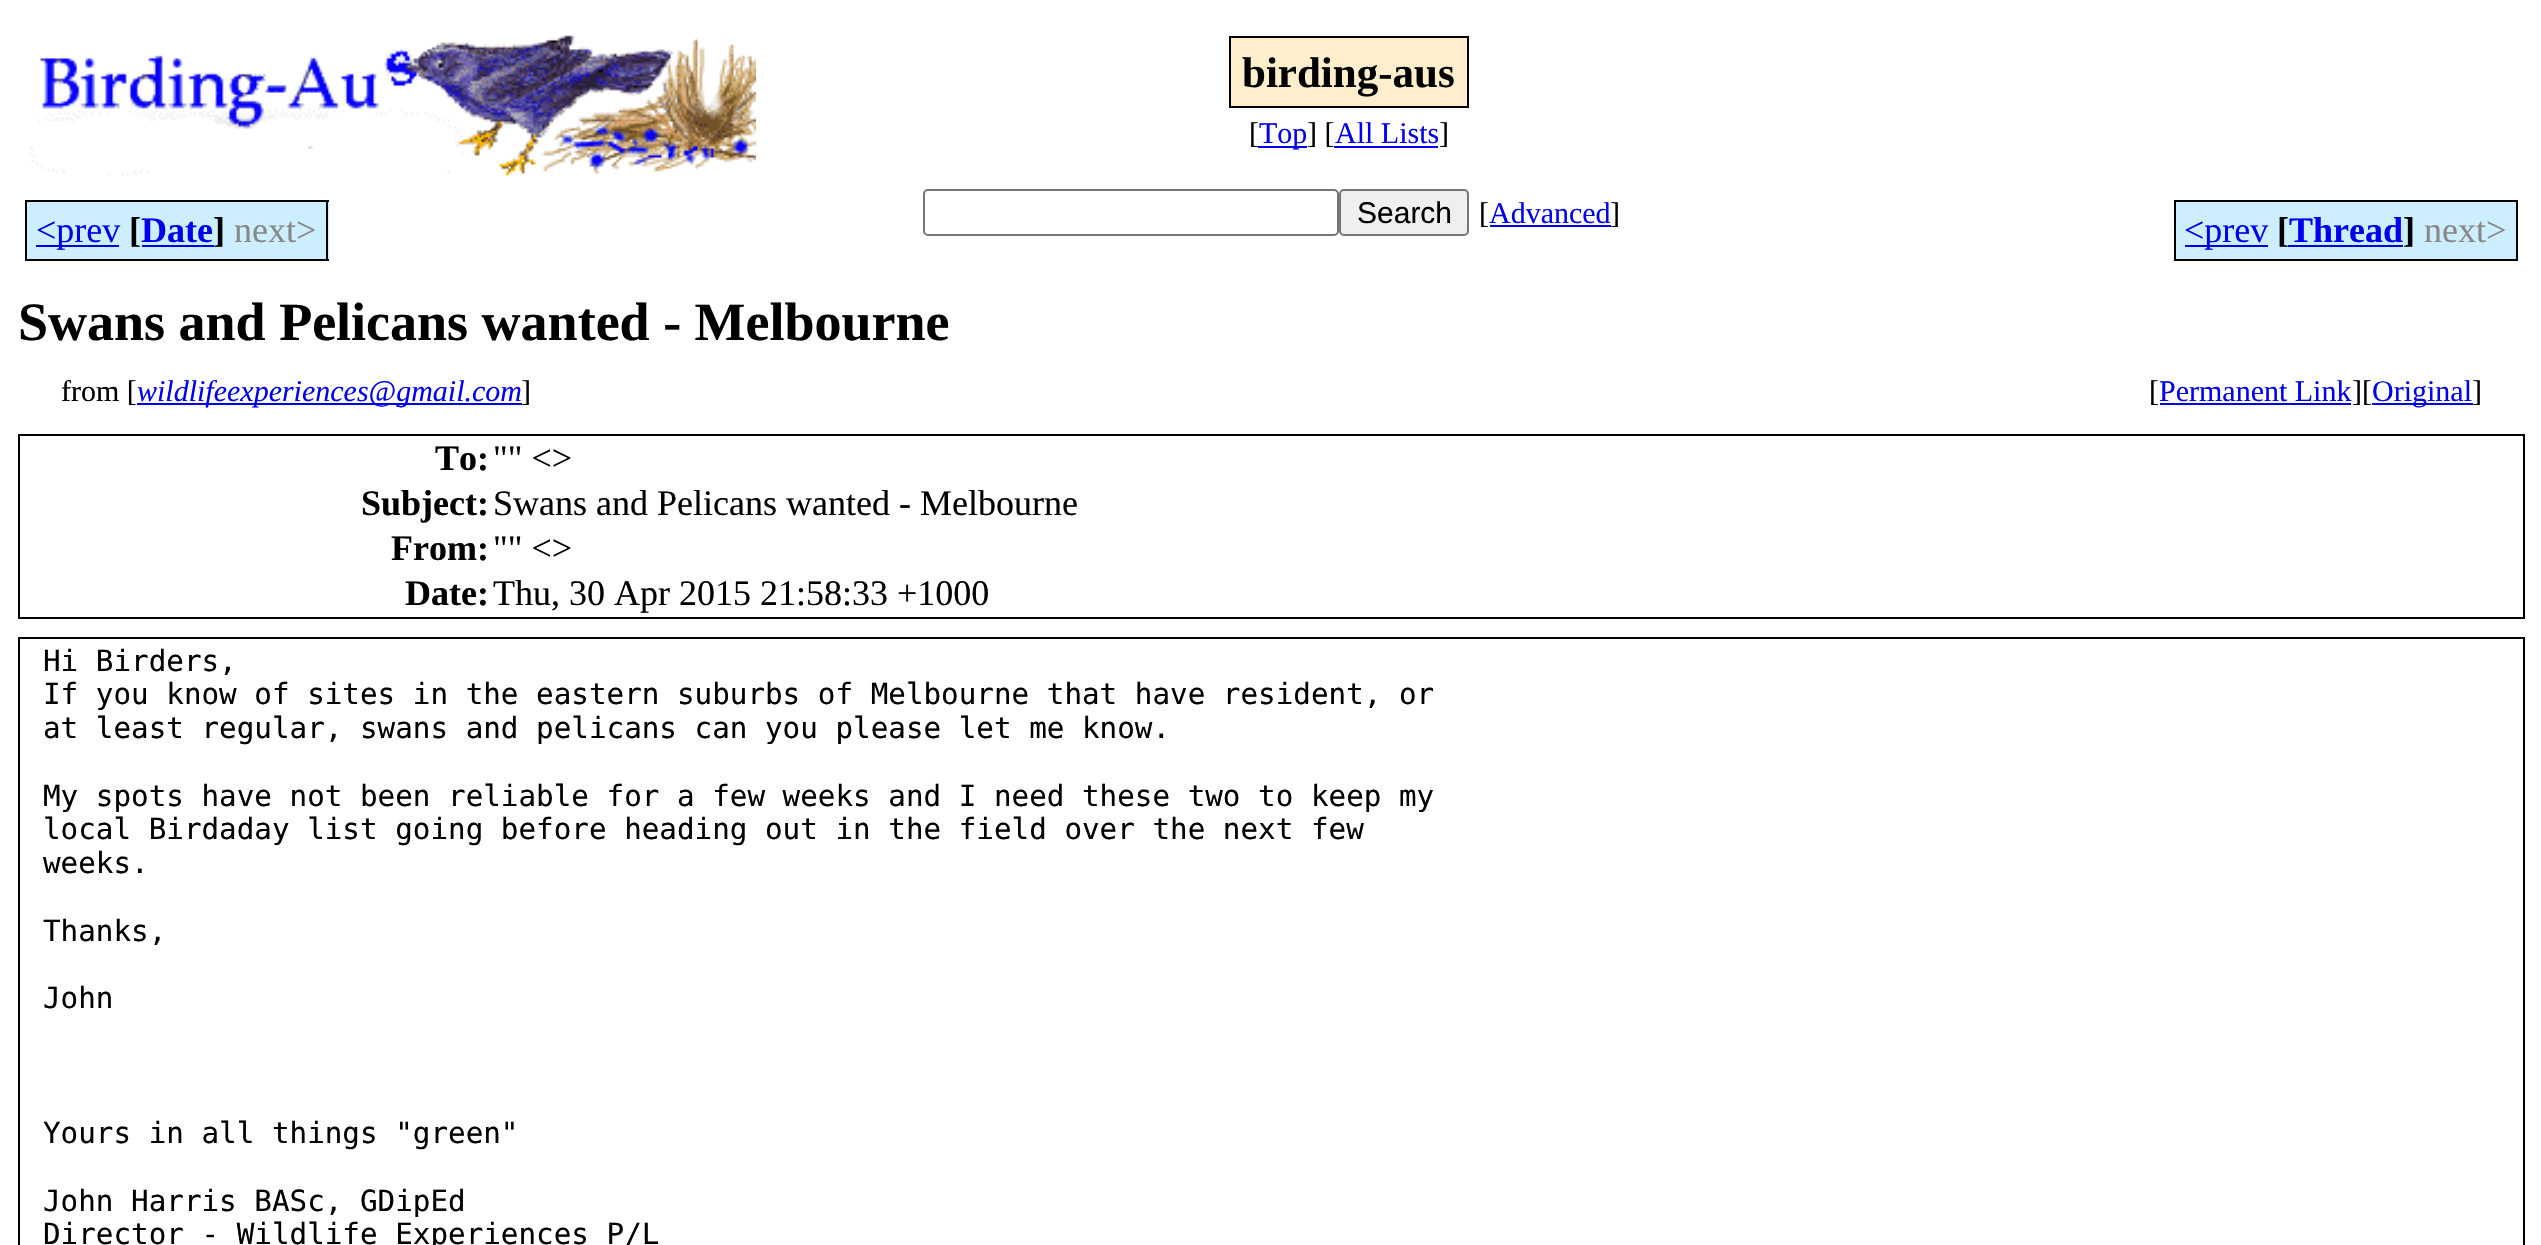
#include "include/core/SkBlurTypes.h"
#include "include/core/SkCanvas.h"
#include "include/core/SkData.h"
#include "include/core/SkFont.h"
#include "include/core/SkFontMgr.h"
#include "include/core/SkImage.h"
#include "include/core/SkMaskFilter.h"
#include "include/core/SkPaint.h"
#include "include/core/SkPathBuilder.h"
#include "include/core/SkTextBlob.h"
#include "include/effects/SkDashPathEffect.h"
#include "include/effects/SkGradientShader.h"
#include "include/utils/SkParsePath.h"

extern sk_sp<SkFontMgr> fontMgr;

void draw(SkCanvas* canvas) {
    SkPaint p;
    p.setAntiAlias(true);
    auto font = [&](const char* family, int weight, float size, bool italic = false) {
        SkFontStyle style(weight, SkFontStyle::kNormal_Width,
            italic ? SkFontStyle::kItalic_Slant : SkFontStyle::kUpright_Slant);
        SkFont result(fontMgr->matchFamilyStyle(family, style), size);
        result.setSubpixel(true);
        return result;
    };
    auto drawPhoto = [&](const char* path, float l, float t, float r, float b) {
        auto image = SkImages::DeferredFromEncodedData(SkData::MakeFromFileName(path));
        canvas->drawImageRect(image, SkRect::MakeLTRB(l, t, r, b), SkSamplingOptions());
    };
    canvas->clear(0xFFFFFFFF);
    drawPhoto("media/1.png", 29, 35, 756, 176);
    p.setColor(0xFFFFEECC);
    canvas->drawRect(SkRect::MakeLTRB(1230, 37, 1468, 107), p);
    p.setStyle(SkPaint::kStroke_Style);
    p.setStrokeWidth(2);
    p.setColor(0xFF000000);
    canvas->drawRect(SkRect::MakeLTRB(1230, 37, 1468, 107), p);
    auto font1 = font("Liberation Serif", 700, 43);
    p.setStyle(SkPaint::kFill_Style);
    canvas->drawString("birding-aus", 1242, 87, font1, p);
    auto font2 = font("Liberation Serif", 400, 30);
    canvas->drawString("[", 1249, 143, font2, p);
    p.setColor(0xFF0000EE);
    canvas->drawRect(SkRect::MakeLTRB(1258, 146, 1307, 148), p);
    canvas->drawString("Top", 1259, 143, font2, p);
    p.setColor(0xFF000000);
    canvas->drawString("] [", 1307, 143, font2, p);
    p.setColor(0xFF0000EE);
    canvas->drawString("All Lists", 1335, 143, font2, p);
    p.setColor(0xFF000000);
    canvas->drawString("]", 1439, 143, font2, p);
    p.setColor(0xFF0000EE);
    canvas->drawRect(SkRect::MakeLTRB(1334, 146, 1438, 148), p);
    p.setStyle(SkPaint::kStroke_Style);
    p.setColor(0xFF767676);
    canvas->drawRoundRect(SkRect::MakeLTRB(924, 190, 1338, 235), 4, 4, p);
    p.setStyle(SkPaint::kFill_Style);
    p.setColor(0xFFEFEFEF);
    canvas->drawRoundRect(SkRect::MakeLTRB(1340, 190, 1468, 235), 4, 4, p);
    p.setStyle(SkPaint::kStroke_Style);
    p.setColor(0xFF767676);
    canvas->drawRoundRect(SkRect::MakeLTRB(1340, 190, 1468, 235), 4, 4, p);
    auto font3 = font("Liberation Sans", 400, 30);
    p.setStyle(SkPaint::kFill_Style);
    p.setColor(0xFF000000);
    canvas->drawString("Search", 1357, 223, font3, p);
    canvas->drawString("[", 1479, 223, font2, p);
    p.setColor(0xFF0000EE);
    canvas->drawString("Advanced", 1489, 223, font2, p);
    p.setColor(0xFF000000);
    canvas->drawString("]", 1610, 223, font2, p);
    {
        const struct { float l, t, r, b; SkColor color; } items[] = {
            {1490, 225, 1611, 227, 0xFF0000EE},
            {27, 202, 329, 259, 0xFFCCEEFF},
            {36, 245, 119, 247, 0xFF0000EE},
        };
        for (auto [l, t, r, b, color] : items) {
            p.setColor(color);
            canvas->drawRect(SkRect::MakeLTRB(l, t, r, b), p);
        }
    }
    auto font4 = font("Liberation Serif", 400, 36);
    canvas->drawString("<prev", 36, 242, font4, p);
    {
        const struct { float l, t, r, b; SkColor color; } items[] = {
            {25, 259, 234, 261, 0xFF000000},
            {25, 200, 329, 202, 0xFF000000},
            {25, 200, 27, 261, 0xFF000000},
        };
        for (auto [l, t, r, b, color] : items) {
            p.setColor(color);
            canvas->drawRect(SkRect::MakeLTRB(l, t, r, b), p);
        }
    }
    auto font5 = font("Liberation Serif", 700, 36);
    canvas->drawString("[", 129, 242, font5, p);
    p.setColor(0xFF0000EE);
    canvas->drawString("Date", 141, 242, font5, p);
    p.setColor(0xFF000000);
    canvas->drawString("]", 213, 242, font5, p);
    p.setColor(0xFF0000EE);
    canvas->drawRect(SkRect::MakeLTRB(142, 245, 214, 247), p);
    p.setColor(0xFF888888);
    canvas->drawString("next>", 234, 242, font4, p);
    {
        const struct { float l, t, r, b; SkColor color; } items[] = {
            {326, 200, 328, 261, 0xFF000000},
            {234, 259, 329, 261, 0xFF000000},
            {2176, 202, 2516, 259, 0xFFCCEEFF},
            {2185, 245, 2268, 247, 0xFF0000EE},
        };
        for (auto [l, t, r, b, color] : items) {
            p.setColor(color);
            canvas->drawRect(SkRect::MakeLTRB(l, t, r, b), p);
        }
    }
    canvas->drawString("<prev", 2184, 242, font4, p);
    {
        const struct { float l, t, r, b; SkColor color; } items[] = {
            {2174, 259, 2423, 261, 0xFF000000},
            {2174, 200, 2518, 202, 0xFF000000},
            {2174, 200, 2176, 261, 0xFF000000},
        };
        for (auto [l, t, r, b, color] : items) {
            p.setColor(color);
            canvas->drawRect(SkRect::MakeLTRB(l, t, r, b), p);
        }
    }
    canvas->drawString("[", 2277, 242, font5, p);
    p.setColor(0xFF0000EE);
    canvas->drawRect(SkRect::MakeLTRB(2288, 245, 2403, 247), p);
    canvas->drawString("Thread", 2289, 242, font5, p);
    p.setColor(0xFF000000);
    canvas->drawString("]", 2403, 242, font5, p);
    p.setColor(0xFF888888);
    canvas->drawString("next>", 2424, 242, font4, p);
    p.setColor(0xFF000000);
    canvas->drawRect(SkRect::MakeLTRB(2516, 200, 2518, 261), p);
    canvas->drawRect(SkRect::MakeLTRB(2423, 259, 2518, 261), p);
    auto font6 = font("Liberation Serif", 700, 54);
    canvas->drawString("Swans and Pelicans wanted - Melbourne", 18, 340, font6, p);
    canvas->drawString("from [", 61, 401, font2, p);
    p.setColor(0xFF0000EE);
    canvas->drawRect(SkRect::MakeLTRB(137, 403, 522, 405), p);
    auto font7 = font("Liberation Serif", 400, 30, true);
    canvas->drawString("wildlifeexperiences@gmail.com", 137, 401, font7, p);
    p.setColor(0xFF000000);
    canvas->drawString("]", 521, 401, font2, p);
    canvas->drawString("[", 2149, 401, font2, p);
    p.setColor(0xFF0000EE);
    canvas->drawRect(SkRect::MakeLTRB(2160, 403, 2351, 405), p);
    canvas->drawString("Permanent Link", 2159, 401, font2, p);
    p.setColor(0xFF000000);
    canvas->drawString("][", 2352, 401, font2, p);
    p.setColor(0xFF0000EE);
    canvas->drawRect(SkRect::MakeLTRB(2372, 403, 2473, 405), p);
    canvas->drawString("Original", 2372, 401, font2, p);
    p.setColor(0xFF000000);
    canvas->drawString("]", 2472, 401, font2, p);
    p.setStyle(SkPaint::kStroke_Style);
    canvas->drawRect(SkRect::MakeLTRB(19, 435, 2524, 618), p);
    p.setStyle(SkPaint::kFill_Style);
    canvas->drawString("To:", 435, 470, font5, p);
    canvas->drawString("\"\" <>", 493, 470, font4, p);
    canvas->drawString("Subject:", 361, 515, font5, p);
    canvas->drawString("Swans and Pelicans wanted - Melbourne", 493, 515, font4, p);
    canvas->drawString("From:", 391, 560, font5, p);
    canvas->drawString("\"\" <>", 493, 560, font4, p);
    canvas->drawString("Date:", 405, 605, font5, p);
    canvas->drawString("Thu, 30 Apr 2015 21:58:33 +1000", 493, 605, font4, p);
    p.setStyle(SkPaint::kStroke_Style);
    canvas->drawRect(SkRect::MakeLTRB(19, 638, 2524, 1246), p);
    auto font8 = font("DejaVu Sans Mono", 400, 29.25f);
    p.setStyle(SkPaint::kFill_Style);
    {
        const struct { const char* s; float x, y; } items[] = {
            {"Hi Birders,", 43, 671},
            {"If you know of sites in the eastern suburbs of Melbourne that have resident, or", 43, 704},
            {"at least regular, swans and pelicans can you please let me know.", 43, 738},
            {"My spots have not been reliable for a few weeks and I need these two to keep my", 43, 806},
            {"local Birdaday list going before heading out in the field over the next few", 43, 839},
            {"weeks.", 43, 873},
            {"Thanks,", 43, 941},
            {"John", 43, 1008},
            {"Yours in all things \"green\"", 43, 1143},
            {"John Harris BASc, GDipEd", 43, 1211},
            {"Director - Wildlife Experiences P/L", 43, 1244},
        };
        for (auto [s, x, y] : items) {
            canvas->drawString(s, x, y, font8, p);
        }
    }
}
